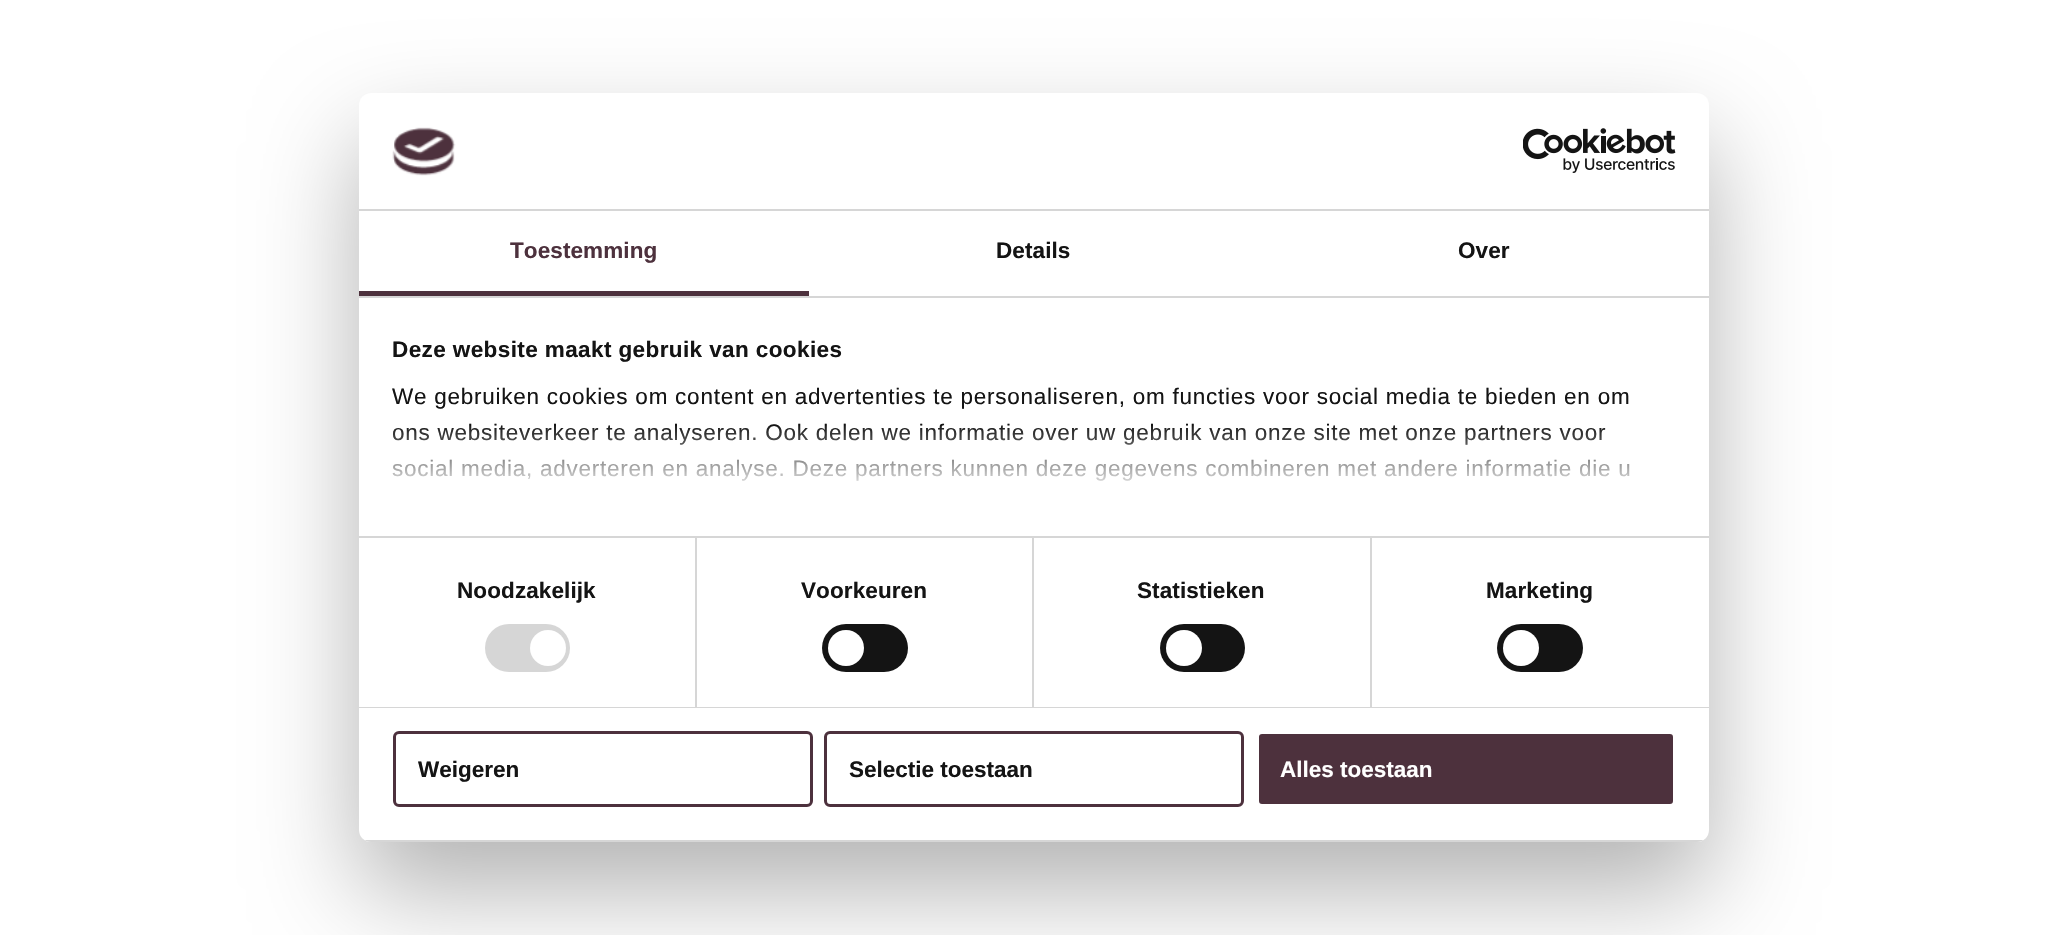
#include "include/core/SkBlurTypes.h"
#include "include/core/SkCanvas.h"
#include "include/core/SkData.h"
#include "include/core/SkFont.h"
#include "include/core/SkFontMgr.h"
#include "include/core/SkImage.h"
#include "include/core/SkMaskFilter.h"
#include "include/core/SkPaint.h"
#include "include/core/SkPathBuilder.h"
#include "include/core/SkTextBlob.h"
#include "include/effects/SkDashPathEffect.h"
#include "include/effects/SkGradientShader.h"
#include "include/utils/SkParsePath.h"

extern sk_sp<SkFontMgr> fontMgr;

void draw(SkCanvas* canvas) {
    SkPaint p;
    p.setAntiAlias(true);
    auto font = [&](const char* family, int weight, float size, bool italic = false) {
        SkFontStyle style(weight, SkFontStyle::kNormal_Width,
            italic ? SkFontStyle::kItalic_Slant : SkFontStyle::kUpright_Slant);
        SkFont result(fontMgr->matchFamilyStyle(family, style), size);
        result.setSubpixel(true);
        return result;
    };
    auto drawTracked = [&](const char* s, float x, float y, const SkFont& font, const SkPaint& ink, float letter, float word) {
        std::vector<SkGlyphID> glyphs(font.countText(s, strlen(s), SkTextEncoding::kUTF8));
        std::vector<float> xs(glyphs.size());
        font.textToGlyphs(s, strlen(s), SkTextEncoding::kUTF8, glyphs);
        font.getXPos(glyphs, xs, x);
        float extra = 0;
        for (size_t i = 0; i < glyphs.size(); i++) {
            xs[i] += extra;
            extra += letter + word * (glyphs[i] == font.unicharToGlyph(' '));
        }
        canvas->drawTextBlob(SkTextBlob::MakeFromPosHGlyphs(glyphs, xs, y, font), 0, 0, ink);
    };
    auto drawPhoto = [&](const char* path, float l, float t, float r, float b) {
        auto image = SkImages::DeferredFromEncodedData(SkData::MakeFromFileName(path));
        canvas->drawImageRect(image, SkRect::MakeLTRB(l, t, r, b), SkSamplingOptions());
    };
    canvas->clear(0xFFFFFFFF);
    p.setColor(0x4D000000);
    p.setMaskFilter(SkMaskFilter::MakeBlur(kNormal_SkBlurStyle, 51));
    canvas->drawRoundRect(SkRect::MakeLTRB(359, 141, 1709, 890), 12, 12, p);
    p.setMaskFilter(nullptr);
    p.setColor(0xFFFFFFFF);
    canvas->drawRoundRect(SkRect::MakeLTRB(359, 93, 1709, 842), 12, 12, p);
    p.setColor(0xFFD6D6D6);
    canvas->drawRect(SkRect::MakeLTRB(359, 209, 1709, 211), p);
    drawPhoto("media/1.png", 392, 127, 456, 176);
    drawPhoto("media/2.png", 1523, 128, 1676, 173);
    canvas->drawRect(SkRect::MakeLTRB(359, 296, 1709, 298), p);
    p.setColor(0xFF4D313D);
    canvas->drawRect(SkRect::MakeLTRB(359, 291, 809, 296), p);
    auto font1 = font("Liberation Sans", 700, 22.5f);
    drawTracked("Toestemming", 510, 258, font1, p, 0.1f, 0);
    p.setColor(0xFF141414);
    drawTracked("Details", 996, 258, font1, p, 0.1f, 0);
    drawTracked("Over", 1458, 258, font1, p, 0.1f, 0);
    {
        const struct { float l, t, r, b; SkColor color; } items[] = {
            {695, 537, 697, 707, 0xFFD6D6D6},
            {1032, 537, 1034, 707, 0xFFD6D6D6},
            {1370, 537, 1372, 707, 0xFFD6D6D6},
            {359, 536, 1709, 538, 0xFFD6D6D6},
        };
        for (auto [l, t, r, b, color] : items) {
            p.setColor(color);
            canvas->drawRect(SkRect::MakeLTRB(l, t, r, b), p);
        }
    }
    p.setColor(0xFF141414);
    drawTracked("Deze website maakt gebruik van cookies", 392, 357, font1, p, 0.4f, 0);
    auto font2 = font("Liberation Sans", 400, 22.5f);
    {
        const struct { const char* s; float x, y; } items[] = {
            {"We gebruiken cookies om content en advertenties te personaliseren, om functies voor social media te bieden en om", 392, 404},
            {"ons websiteverkeer te analyseren. Ook delen we informatie over uw gebruik van onze site met onze partners voor", 392, 440},
            {"social media, adverteren en analyse. Deze partners kunnen deze gegevens combineren met andere informatie die u", 392, 476},
        };
        for (auto [s, x, y] : items) {
            drawTracked(s, x, y, font2, p, 0.75f, 0);
        }
    }
    {
        const SkColor colors[] = {0xFFFFFFFF, 0xCCFFFFFF, 0x00FFFFFF};
        const float stops[] = {0, 0.5f, 1};
        const SkPoint ends[] = {{1019, 536}, {1019, 424}};
        p.setShader(SkGradientShader::MakeLinear(ends, colors, stops, 3, SkTileMode::kClamp));
        p.setAlpha(255);
    }
    canvas->drawRect(SkRect::MakeLTRB(392, 426, 1630, 481), p);
    p.setShader(nullptr);
    p.setColor(0xFFD6D6D6);
    canvas->drawRect(SkRect::MakeLTRB(359, 707, 1709, 708), p);
    p.setColor(0xFF141414);
    drawTracked("Noodzakelijk", 457, 598, font1, p, 0.1f, 0);
    p.setColor(0xFFD6D6D6);
    canvas->drawRoundRect(SkRect::MakeLTRB(485, 624, 570, 672), 24, 24, p);
    p.setColor(0xFFFFFFFF);
    canvas->drawCircle(548, 648, 18, p);
    p.setColor(0xFF141414);
    drawTracked("Voorkeuren", 801, 598, font1, p, 0.1f, 0);
    canvas->drawRoundRect(SkRect::MakeLTRB(822, 624, 908, 672), 24, 24, p);
    p.setColor(0xFFFFFFFF);
    canvas->drawCircle(846, 648, 18, p);
    p.setColor(0xFF141414);
    drawTracked("Statistieken", 1137, 598, font1, p, 0.1f, 0);
    canvas->drawRoundRect(SkRect::MakeLTRB(1160, 624, 1245, 672), 24, 24, p);
    p.setColor(0xFFFFFFFF);
    canvas->drawCircle(1184, 648, 18, p);
    p.setColor(0xFF141414);
    drawTracked("Marketing", 1486, 598, font1, p, 0.1f, 0);
    canvas->drawRoundRect(SkRect::MakeLTRB(1497, 624, 1583, 672), 24, 24, p);
    p.setColor(0xFFFFFFFF);
    canvas->drawCircle(1521, 648, 18, p);
    canvas->save();
    canvas->clipPath(SkPathBuilder().moveTo(371, 93).lineTo(1697, 93).cubicTo(1703.5f, 93, 1709, 98.5f, 1709, 105).lineTo(1709, 830).cubicTo(1709, 836.5f, 1703.5f, 842, 1697, 842).lineTo(371, 842).cubicTo(364.5f, 842, 359, 836.5f, 359, 830).lineTo(359, 105).cubicTo(359, 98.5f, 364.5f, 93, 371, 93).close().detach(), true);
    p.setColor(0xFFD6D6D6);
    canvas->drawRect(SkRect::MakeLTRB(359, 840, 1709, 842), p);
    canvas->restore();
    p.setStyle(SkPaint::kStroke_Style);
    p.setStrokeWidth(3);
    p.setColor(0xFF4D313D);
    canvas->drawRoundRect(SkRect::MakeLTRB(394.5f, 732.5f, 811.5f, 805.5f), 4.5f, 4.5f, p);
    p.setStyle(SkPaint::kFill_Style);
    p.setColor(0xFF141414);
    canvas->drawString("Weigeren", 418, 777, font1, p);
    p.setStyle(SkPaint::kStroke_Style);
    p.setColor(0xFF4D313D);
    canvas->drawRoundRect(SkRect::MakeLTRB(825.5f, 732.5f, 1242.5f, 805.5f), 4.5f, 4.5f, p);
    p.setStyle(SkPaint::kFill_Style);
    p.setColor(0xFF141414);
    canvas->drawString("Selectie toestaan", 849, 777, font1, p);
    p.setColor(0xFF4D313D);
    canvas->drawRoundRect(SkRect::MakeLTRB(1257.5f, 732.5f, 1674.5f, 805.5f), 4.5f, 4.5f, p);
    p.setStyle(SkPaint::kStroke_Style);
    p.setColor(0xFFFFFFFF);
    canvas->drawRoundRect(SkRect::MakeLTRB(1257.5f, 732.5f, 1674.5f, 805.5f), 4.5f, 4.5f, p);
    p.setStyle(SkPaint::kFill_Style);
    canvas->drawString("Alles toestaan", 1280, 777, font1, p);
}
